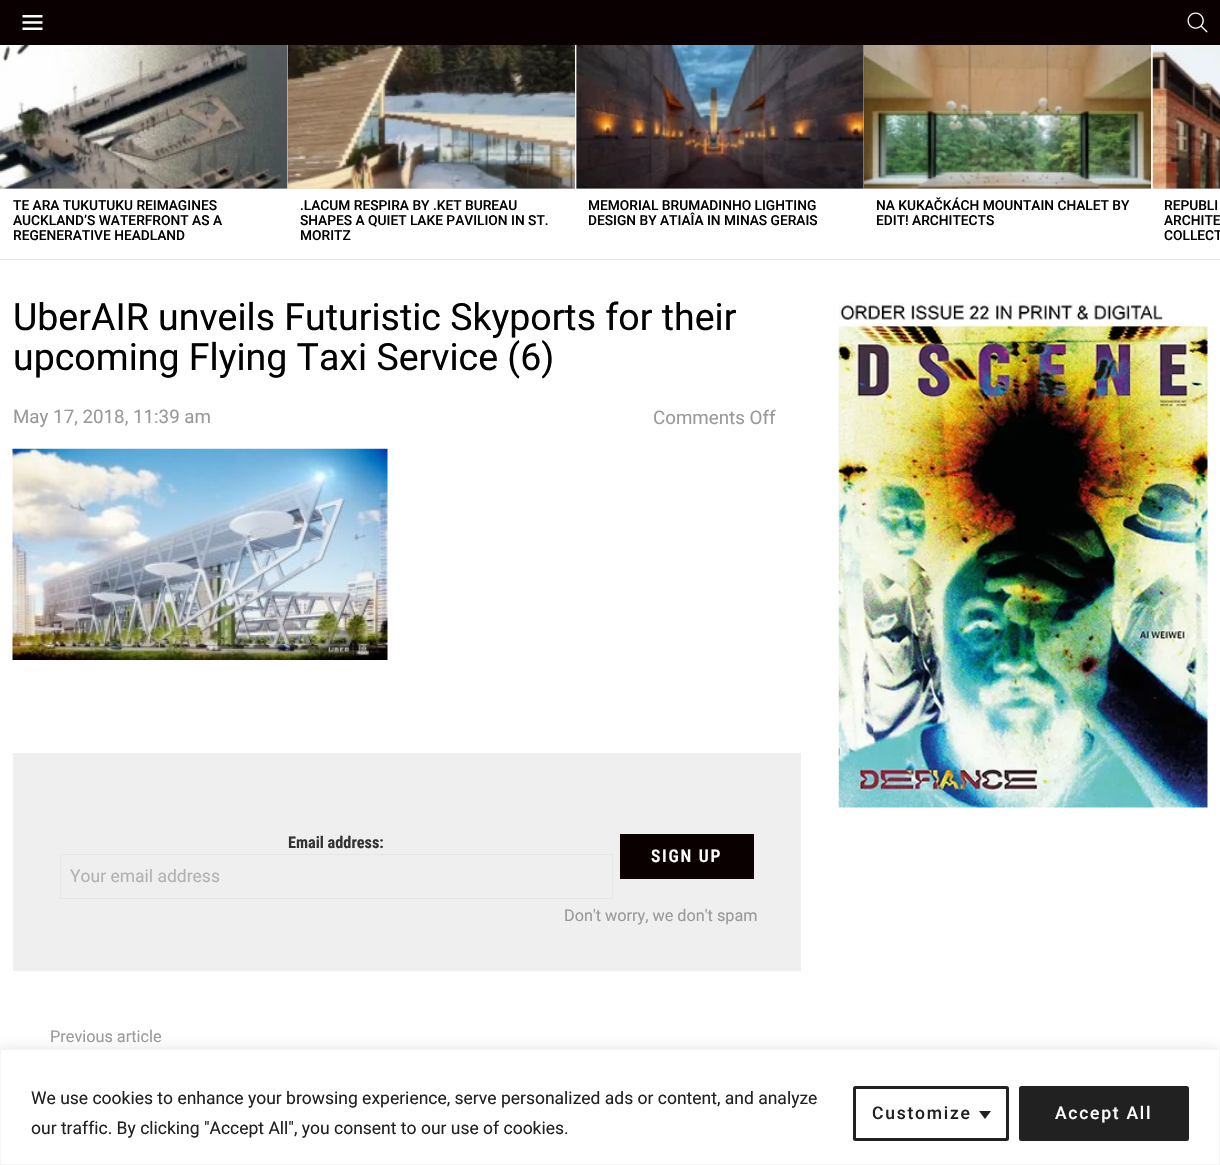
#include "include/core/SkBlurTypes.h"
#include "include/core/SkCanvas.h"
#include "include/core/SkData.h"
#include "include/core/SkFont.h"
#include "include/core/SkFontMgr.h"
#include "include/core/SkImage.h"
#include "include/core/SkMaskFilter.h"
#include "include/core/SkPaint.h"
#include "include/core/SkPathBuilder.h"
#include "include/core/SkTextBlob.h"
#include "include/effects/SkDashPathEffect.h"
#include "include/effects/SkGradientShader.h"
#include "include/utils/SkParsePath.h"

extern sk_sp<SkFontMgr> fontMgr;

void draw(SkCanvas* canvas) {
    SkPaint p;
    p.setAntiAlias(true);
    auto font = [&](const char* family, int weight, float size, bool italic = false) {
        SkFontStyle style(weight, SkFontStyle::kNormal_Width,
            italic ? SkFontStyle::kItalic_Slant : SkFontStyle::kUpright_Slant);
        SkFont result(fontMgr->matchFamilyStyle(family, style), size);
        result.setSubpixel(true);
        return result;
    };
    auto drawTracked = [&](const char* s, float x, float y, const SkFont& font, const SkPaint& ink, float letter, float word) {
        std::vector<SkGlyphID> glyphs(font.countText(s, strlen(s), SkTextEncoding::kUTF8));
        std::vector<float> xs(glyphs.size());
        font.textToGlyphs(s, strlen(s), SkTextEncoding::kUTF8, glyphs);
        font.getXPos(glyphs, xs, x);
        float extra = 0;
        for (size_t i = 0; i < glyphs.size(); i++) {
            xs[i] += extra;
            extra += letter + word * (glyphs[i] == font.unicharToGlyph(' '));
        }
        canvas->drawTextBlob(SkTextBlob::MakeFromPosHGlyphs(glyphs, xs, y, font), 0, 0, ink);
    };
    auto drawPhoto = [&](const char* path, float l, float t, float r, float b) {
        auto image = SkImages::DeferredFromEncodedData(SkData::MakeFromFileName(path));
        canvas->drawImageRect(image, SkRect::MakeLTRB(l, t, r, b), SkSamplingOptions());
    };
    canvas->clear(0xFFFFFFFF);
    p.setColor(0xFF0A0002);
    canvas->drawRect(SkRect::MakeLTRB(0, 0, 1220, 45), p);
    drawPhoto("media/1.png", 22, 15, 43, 30);
    drawPhoto("media/2.png", 1187, 12, 1208, 33);
    p.setColor(0xFFE6E6E6);
    canvas->drawRect(SkRect::MakeLTRB(0, 259, 1220, 260), p);
    canvas->drawRect(SkRect::MakeLTRB(0, 45, 288, 189), p);
    drawPhoto("media/3.png", 0, 45, 288, 189);
    auto font1 = font("Roboto", 500, 13.75f);
    p.setColor(0xFF000000);
    {
        const struct { const char* s; float x, y; } items[] = {
            {"TE ARA TUKUTUKU REIMAGINES", 13, 210},
            {"AUCKLAND’S WATERFRONT AS A", 13, 225},
            {"REGENERATIVE HEADLAND", 13, 240},
        };
        for (auto [s, x, y] : items) {
            canvas->drawString(s, x, y, font1, p);
        }
    }
    p.setColor(0xFFE6E6E6);
    canvas->drawRect(SkRect::MakeLTRB(288, 188, 575, 189), p);
    drawPhoto("media/4.png", 287, 45, 575, 189);
    p.setColor(0xFF000000);
    {
        const struct { const char* s; float x, y; } items[] = {
            {".LACUM RESPIRA BY .KET BUREAU", 300, 210},
            {"SHAPES A QUIET LAKE PAVILION IN ST.", 300, 225},
            {"MORITZ", 300, 240},
        };
        for (auto [s, x, y] : items) {
            canvas->drawString(s, x, y, font1, p);
        }
    }
    p.setColor(0xFFE6E6E6);
    canvas->drawRect(SkRect::MakeLTRB(576, 45, 864, 189), p);
    drawPhoto("media/5.png", 576, 45, 864, 189);
    p.setColor(0xFF000000);
    canvas->drawString("MEMORIAL BRUMADINHO LIGHTING", 588, 210, font1, p);
    canvas->drawString("DESIGN BY ATIAÎA IN MINAS GERAIS", 588, 225, font1, p);
    p.setColor(0xFFE6E6E6);
    canvas->drawRect(SkRect::MakeLTRB(864, 188, 1151, 189), p);
    drawPhoto("media/6.png", 863, 45, 1152, 189);
    p.setColor(0xFF000000);
    canvas->drawString("NA KUKAČKÁCH MOUNTAIN CHALET BY", 876, 210, font1, p);
    canvas->drawString("EDIT! ARCHITECTS", 876, 225, font1, p);
    p.setColor(0xFFE6E6E6);
    canvas->drawRect(SkRect::MakeLTRB(1153, 188, 1220, 189), p);
    drawPhoto("media/7.png", 1152, 45, 1220, 189);
    p.setColor(0xFF000000);
    {
        const struct { const char* s; float x, y; } items[] = {
            {"REPUBLI", 1164, 210},
            {"ARCHITE", 1164, 225},
            {"COLLECT", 1164, 240},
        };
        for (auto [s, x, y] : items) {
            canvas->drawString(s, x, y, font1, p);
        }
    }
    auto font2 = font("Roboto", 400, 37.5f);
    canvas->drawString("UberAIR unveils Futuristic Skyports for their", 13, 330, font2, p);
    canvas->drawString("upcoming Flying Taxi Service (6)", 13, 370, font2, p);
    auto font3 = font("Roboto", 400, 18.75f);
    p.setColor(0xFF999999);
    canvas->drawString("May 17, 2018, 11:39 am", 13, 423, font3, p);
    canvas->drawString("Comments Off", 653, 424, font3, p);
    drawPhoto("media/8.png", 12, 448, 388, 660);
    p.setColor(0xFFEFEFEF);
    canvas->drawRect(SkRect::MakeLTRB(13, 753, 801, 971), p);
    auto font4 = font("Roboto Condensed", 700, 16.25f);
    p.setColor(0xFF333333);
    canvas->drawString("Email address:", 288, 848, font4, p);
    p.setStyle(SkPaint::kStroke_Style);
    p.setStrokeWidth(1);
    p.setColor(0xFFE6E6E6);
    canvas->drawRect(SkRect::MakeLTRB(60.5f, 854.5f, 612.5f, 898.5f), p);
    auto font5 = font("Roboto", 400, 17.5f);
    p.setStyle(SkPaint::kFill_Style);
    p.setColor(0xFFB1B1B1);
    canvas->drawString("Your email address", 70, 882, font5, p);
    p.setColor(0xFF0A0000);
    canvas->drawRect(SkRect::MakeLTRB(620, 834, 754, 879), p);
    auto font6 = font("Roboto Condensed", 600, 17.5f);
    p.setColor(0xFFFFFFFF);
    drawTracked("SIGN UP", 651, 862, font6, p, 1.75f, 0);
    auto font7 = font("Roboto", 400, 16.25f);
    p.setColor(0xFF999999);
    canvas->drawString("Don't worry, we don't spam", 564, 921, font7, p);
    canvas->drawString("Previous article", 50, 1042, font7, p);
    drawPhoto("media/9.png", 838, 302, 1208, 808);
    p.setColor(0x4DACABAB);
    p.setMaskFilter(SkMaskFilter::MakeBlur(kNormal_SkBlurStyle, 6));
    canvas->drawRect(SkRect::MakeLTRB(0, 1048, 1220, 1164), p);
    p.setMaskFilter(nullptr);
    p.setColor(0xFFFFFFFF);
    canvas->drawRect(SkRect::MakeLTRB(0.5f, 1049.5f, 1219.5f, 1164.5f), p);
    p.setStyle(SkPaint::kStroke_Style);
    p.setColor(0xFFF4F4F4);
    canvas->drawRect(SkRect::MakeLTRB(0.5f, 1049.5f, 1219.5f, 1164.5f), p);
    p.setStyle(SkPaint::kFill_Style);
    p.setColor(0xFF212121);
    canvas->drawString("We use cookies to enhance your browsing experience, serve personalized ads or content, and analyze", 31, 1104, font5, p);
    canvas->drawString("our traffic. By clicking \"Accept All\", you consent to our use of cookies.", 31, 1134, font5, p);
    p.setStyle(SkPaint::kStroke_Style);
    p.setStrokeWidth(3);
    canvas->drawRoundRect(SkRect::MakeLTRB(854.5f, 1087.5f, 1007.5f, 1139.5f), 1, 1, p);
    auto font8 = font("Roboto", 500, 17.5f);
    p.setStyle(SkPaint::kFill_Style);
    drawTracked("Customize", 872, 1119, font8, p, 1.75f, 0);
    canvas->drawPath(SkPathBuilder().moveTo(979, 1111).lineTo(991, 1111).lineTo(985, 1119).close().detach(), p);
    canvas->drawRoundRect(SkRect::MakeLTRB(1020.5f, 1087.5f, 1187.5f, 1139.5f), 1, 1, p);
    p.setStyle(SkPaint::kStroke_Style);
    canvas->drawRoundRect(SkRect::MakeLTRB(1020.5f, 1087.5f, 1187.5f, 1139.5f), 1, 1, p);
    p.setStyle(SkPaint::kFill_Style);
    p.setColor(0xFFFFFFFF);
    drawTracked("Accept All", 1055, 1119, font8, p, 1.75f, 0);
}
